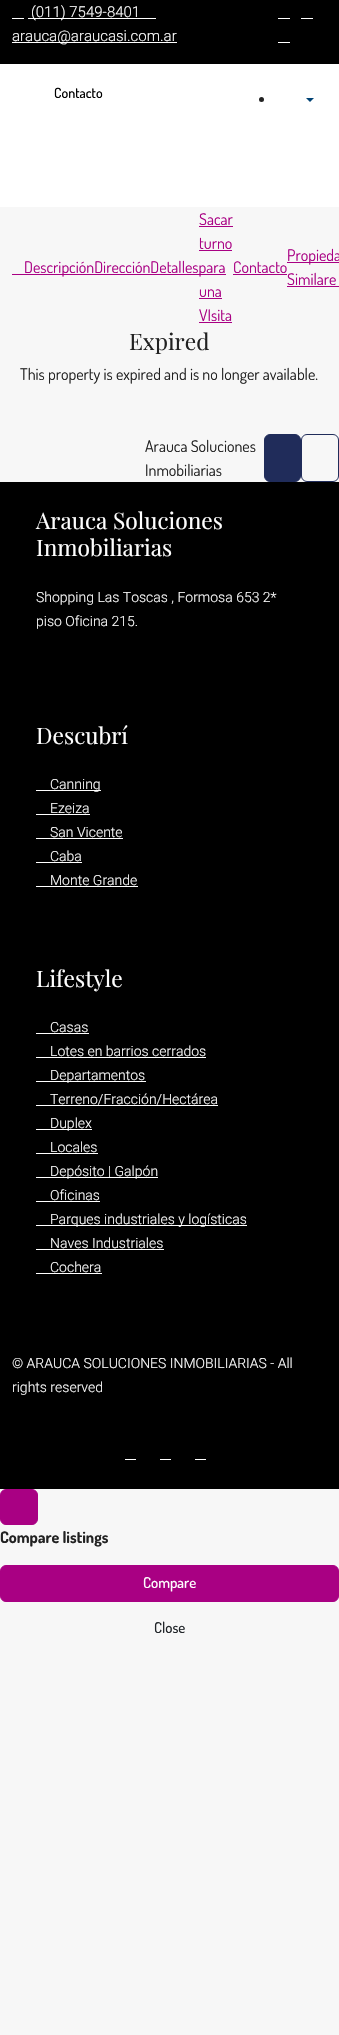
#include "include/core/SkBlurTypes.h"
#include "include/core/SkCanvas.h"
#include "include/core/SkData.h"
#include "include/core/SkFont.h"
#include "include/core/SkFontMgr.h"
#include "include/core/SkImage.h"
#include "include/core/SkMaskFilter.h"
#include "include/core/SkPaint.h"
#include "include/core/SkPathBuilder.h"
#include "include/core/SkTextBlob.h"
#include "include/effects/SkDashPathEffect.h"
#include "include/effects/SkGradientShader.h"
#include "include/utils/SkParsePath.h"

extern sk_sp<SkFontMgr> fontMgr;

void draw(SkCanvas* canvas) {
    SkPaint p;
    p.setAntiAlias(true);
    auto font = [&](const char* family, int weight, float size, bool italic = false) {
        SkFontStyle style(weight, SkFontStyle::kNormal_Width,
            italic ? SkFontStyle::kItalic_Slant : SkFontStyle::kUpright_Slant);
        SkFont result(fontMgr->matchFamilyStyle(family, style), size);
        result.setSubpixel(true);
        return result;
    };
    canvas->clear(0xFFF7F7F7);
    p.setColor(0xFF000000);
    canvas->drawRect(SkRect::MakeLTRB(0, 0, 339, 64), p);
    p.setColor(0xFFFFFFFF);
    canvas->drawRect(SkRect::MakeLTRB(28, 18, 156, 19), p);
    auto font1 = font("Roboto", 300, 15);
    canvas->drawString("(011) 7549-8401", 31, 17, font1, p);
    canvas->drawRect(SkRect::MakeLTRB(12, 18, 24, 19), p);
    canvas->drawRect(SkRect::MakeLTRB(12, 42, 177, 43), p);
    canvas->drawString("arauca@araucasi.com.ar", 12, 41, font1, p);
    {
        const struct { float l, t, r, b; SkColor color; } items[] = {
            {278, 18, 290, 19, 0xFFFFFFFF},
            {301, 18, 313, 19, 0xFFFFFFFF},
            {278, 42, 290, 43, 0xFFFFFFFF},
            {0, 64, 339, 207, 0xFFFFFFFF},
        };
        for (auto [l, t, r, b, color] : items) {
            p.setColor(color);
            canvas->drawRect(SkRect::MakeLTRB(l, t, r, b), p);
        }
    }
    auto font2 = font("Dosis", 500, 14);
    p.setColor(0xFF000000);
    canvas->drawString("Contacto", 54, 98, font2, p);
    p.setColor(0xFF222222);
    canvas->drawCircle(261.5f, 99.5f, 2.5f, p);
    p.setColor(0xFF004274);
    canvas->drawPath(SkPathBuilder().moveTo(306, 98).lineTo(314, 98).lineTo(310, 102).close().detach(), p);
    auto font3 = font("Dosis", 400, 16);
    p.setColor(0xFFA90083);
    canvas->drawString("Sacar", 199, 225, font3, p);
    canvas->drawRect(SkRect::MakeLTRB(199, 226, 233, 227), p);
    canvas->drawString("turno", 199, 249, font3, p);
    canvas->drawRect(SkRect::MakeLTRB(199, 250, 232, 251), p);
    canvas->drawString("una", 199, 297, font3, p);
    canvas->drawRect(SkRect::MakeLTRB(199, 298, 222, 299), p);
    canvas->drawString("VIsita", 199, 321, font3, p);
    canvas->drawRect(SkRect::MakeLTRB(199, 322, 232, 323), p);
    canvas->drawRect(SkRect::MakeLTRB(287, 262, 339, 263), p);
    canvas->drawString("Propieda", 287, 261, font3, p);
    canvas->drawString("Similare", 287, 285, font3, p);
    canvas->drawRect(SkRect::MakeLTRB(287, 286, 339, 287), p);
    canvas->drawRect(SkRect::MakeLTRB(12, 274, 226, 275), p);
    canvas->drawString("DescripciónDirecciónDetallespara", 24, 273, font3, p);
    canvas->drawString("Contacto", 233, 273, font3, p);
    canvas->drawRect(SkRect::MakeLTRB(233, 274, 287, 275), p);
    auto font4 = font("Playfair Display", 400, 22.75f);
    p.setColor(0xFF222222);
    canvas->drawString("Expired", 129, 350, font4, p);
    {
        const struct { const char* s; float x, y; } items[] = {
            {"This property is expired and is no longer available.", 20, 380},
            {"Arauca Soluciones", 145, 452},
            {"Inmobiliarias", 145, 476},
        };
        for (auto [s, x, y] : items) {
            canvas->drawString(s, x, y, font3, p);
        }
    }
    p.setColor(0xFF202C5A);
    canvas->drawRoundRect(SkRect::MakeLTRB(264.5f, 434.5f, 300.5f, 481.5f), 5.5f, 5.5f, p);
    p.setStyle(SkPaint::kStroke_Style);
    p.setStrokeWidth(1);
    canvas->drawRoundRect(SkRect::MakeLTRB(264.5f, 434.5f, 300.5f, 481.5f), 5.5f, 5.5f, p);
    canvas->drawRoundRect(SkRect::MakeLTRB(301.5f, 434.5f, 338.5f, 481.5f), 5.5f, 5.5f, p);
    p.setStyle(SkPaint::kFill_Style);
    p.setColor(0xFF000000);
    canvas->drawRect(SkRect::MakeLTRB(0, 482, 339, 1489), p);
    p.setColor(0xFFFFFFFF);
    canvas->drawString("Arauca Soluciones", 36, 529, font4, p);
    canvas->drawString("Inmobiliarias", 36, 556, font4, p);
    auto font5 = font("Roboto", 300, 14);
    canvas->drawString("Shopping Las Toscas , Formosa 653 2*", 36, 602, font5, p);
    canvas->drawString("piso Oficina 215.", 36, 626, font5, p);
    canvas->drawString("Descubrí", 36, 744, font4, p);
    canvas->drawRect(SkRect::MakeLTRB(36, 790, 101, 791), p);
    canvas->drawString("Canning", 50, 789, font5, p);
    canvas->drawString("Ezeiza", 50, 813, font5, p);
    canvas->drawRect(SkRect::MakeLTRB(36, 814, 90, 815), p);
    canvas->drawString("San Vicente", 50, 837, font5, p);
    canvas->drawRect(SkRect::MakeLTRB(36, 838, 123, 839), p);
    canvas->drawString("Caba", 50, 861, font5, p);
    canvas->drawRect(SkRect::MakeLTRB(36, 862, 82, 863), p);
    canvas->drawString("Monte Grande", 50, 885, font5, p);
    canvas->drawRect(SkRect::MakeLTRB(36, 886, 138, 887), p);
    canvas->drawString("Lifestyle", 36, 987, font4, p);
    canvas->drawString("Casas", 50, 1032, font5, p);
    canvas->drawRect(SkRect::MakeLTRB(36, 1033, 89, 1034), p);
    canvas->drawString("Lotes en barrios cerrados", 50, 1056, font5, p);
    canvas->drawRect(SkRect::MakeLTRB(36, 1057, 206, 1058), p);
    canvas->drawRect(SkRect::MakeLTRB(36, 1081, 146, 1082), p);
    canvas->drawString("Departamentos", 50, 1080, font5, p);
    canvas->drawString("Terreno/Fracción/Hectárea", 50, 1104, font5, p);
    canvas->drawRect(SkRect::MakeLTRB(36, 1105, 218, 1106), p);
    canvas->drawRect(SkRect::MakeLTRB(36, 1129, 92, 1130), p);
    canvas->drawString("Duplex", 50, 1128, font5, p);
    canvas->drawString("Locales", 50, 1152, font5, p);
    canvas->drawRect(SkRect::MakeLTRB(36, 1153, 98, 1154), p);
    canvas->drawRect(SkRect::MakeLTRB(36, 1177, 158, 1178), p);
    canvas->drawString("Depósito | Galpón", 50, 1176, font5, p);
    canvas->drawString("Oficinas", 50, 1200, font5, p);
    canvas->drawRect(SkRect::MakeLTRB(36, 1201, 100, 1202), p);
    canvas->drawRect(SkRect::MakeLTRB(36, 1225, 247, 1226), p);
    canvas->drawString("Parques industriales y logísticas", 50, 1224, font5, p);
    canvas->drawString("Naves Industriales", 50, 1248, font5, p);
    canvas->drawRect(SkRect::MakeLTRB(36, 1249, 164, 1250), p);
    canvas->drawString("Cochera", 50, 1272, font5, p);
    canvas->drawRect(SkRect::MakeLTRB(36, 1273, 102, 1274), p);
    canvas->drawString("© ARAUCA SOLUCIONES INMOBILIARIAS - All", 12, 1368, font5, p);
    canvas->drawString("rights reserved", 12, 1392, font5, p);
    {
        const struct { float l, t, r, b; SkColor color; } items[] = {
            {125, 1459, 136, 1460, 0xFFFFFFFF},
            {160, 1459, 171, 1460, 0xFFFFFFFF},
            {195, 1459, 206, 1460, 0xFFFFFFFF},
        };
        for (auto [l, t, r, b, color] : items) {
            p.setColor(color);
            canvas->drawRect(SkRect::MakeLTRB(l, t, r, b), p);
        }
    }
    p.setColor(0xFFA90083);
    canvas->drawRoundRect(SkRect::MakeLTRB(0.5f, 1489.5f, 37.5f, 1524.5f), 5.5f, 5.5f, p);
    p.setStyle(SkPaint::kStroke_Style);
    canvas->drawRoundRect(SkRect::MakeLTRB(0.5f, 1489.5f, 37.5f, 1524.5f), 5.5f, 5.5f, p);
    auto font6 = font("Dosis", 700, 16);
    p.setStyle(SkPaint::kFill_Style);
    p.setColor(0xFF222222);
    canvas->drawString("Compare listings", 0, 1543, font6, p);
    p.setColor(0xFFA90083);
    canvas->drawRoundRect(SkRect::MakeLTRB(0.5f, 1565.5f, 338.5f, 1601.5f), 5.5f, 5.5f, p);
    p.setStyle(SkPaint::kStroke_Style);
    canvas->drawRoundRect(SkRect::MakeLTRB(0.5f, 1565.5f, 338.5f, 1601.5f), 5.5f, 5.5f, p);
    auto font7 = font("Dosis", 500, 15);
    p.setStyle(SkPaint::kFill_Style);
    p.setColor(0xFFFFFFFF);
    canvas->drawString("Compare", 143, 1588, font7, p);
    p.setColor(0xFF212529);
    canvas->drawString("Close", 154, 1633, font7, p);
}
